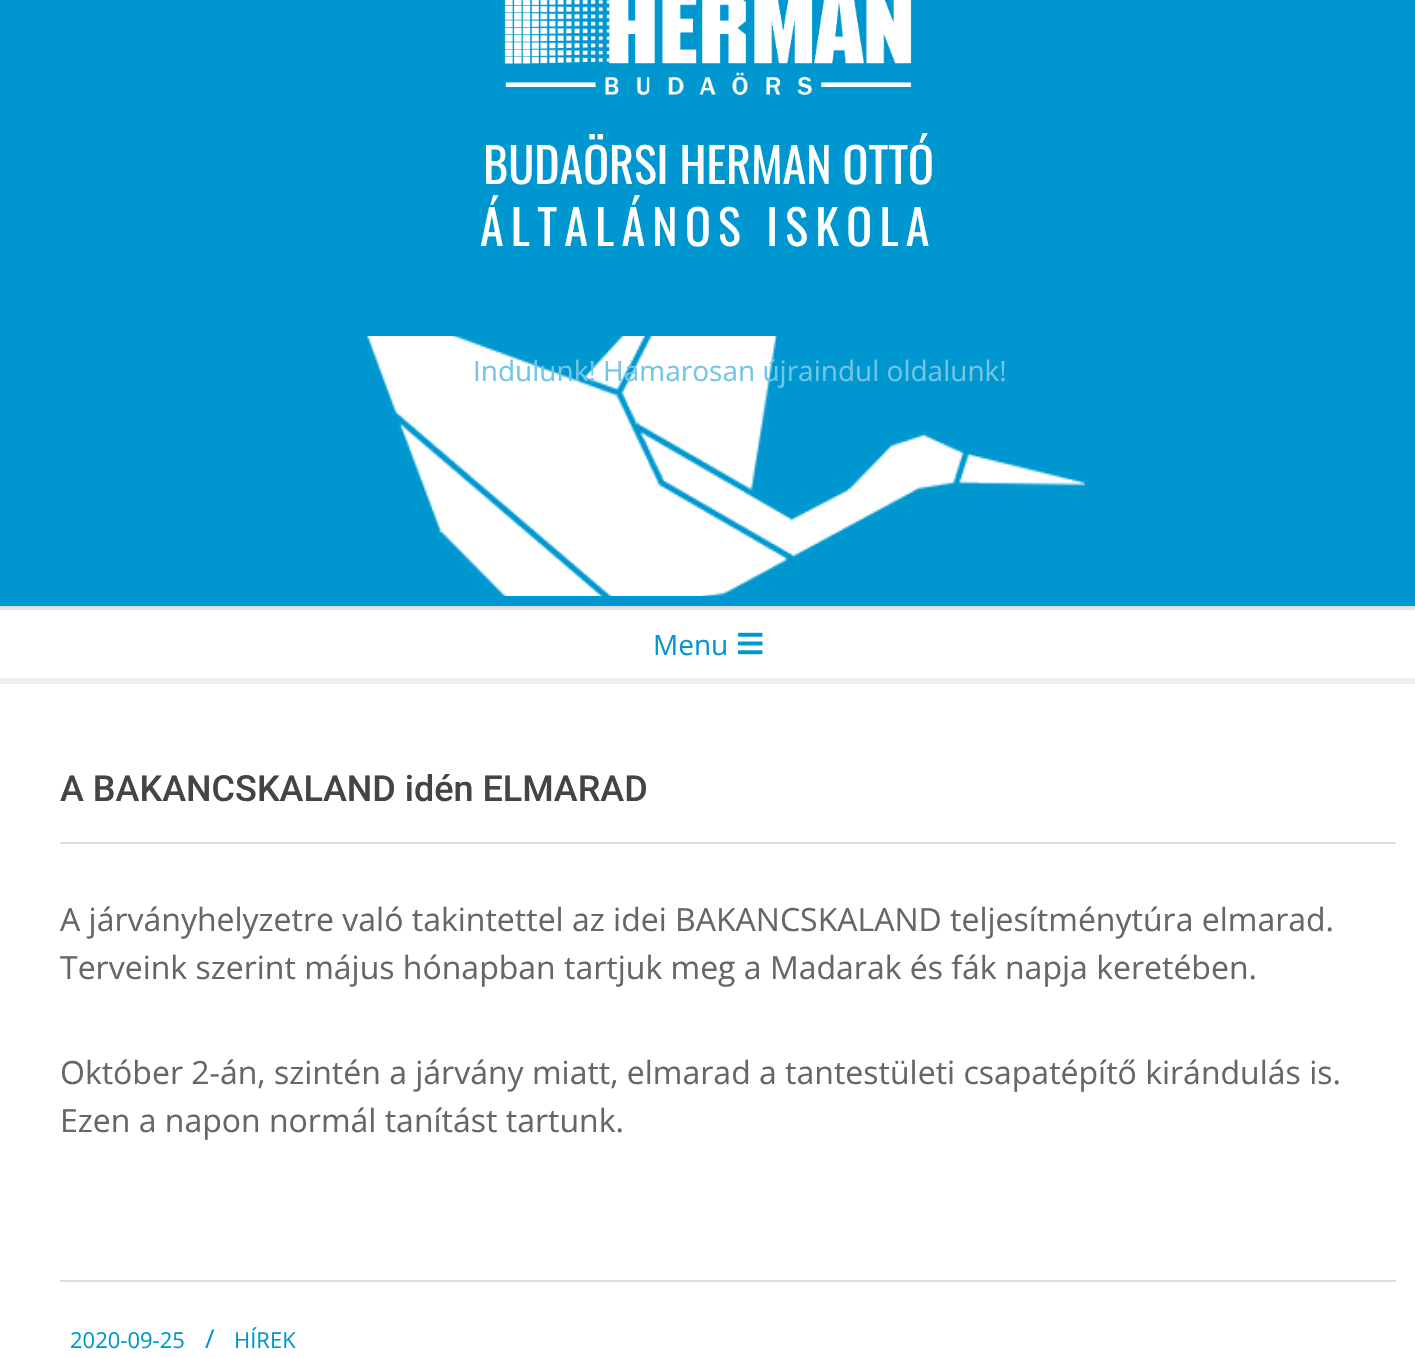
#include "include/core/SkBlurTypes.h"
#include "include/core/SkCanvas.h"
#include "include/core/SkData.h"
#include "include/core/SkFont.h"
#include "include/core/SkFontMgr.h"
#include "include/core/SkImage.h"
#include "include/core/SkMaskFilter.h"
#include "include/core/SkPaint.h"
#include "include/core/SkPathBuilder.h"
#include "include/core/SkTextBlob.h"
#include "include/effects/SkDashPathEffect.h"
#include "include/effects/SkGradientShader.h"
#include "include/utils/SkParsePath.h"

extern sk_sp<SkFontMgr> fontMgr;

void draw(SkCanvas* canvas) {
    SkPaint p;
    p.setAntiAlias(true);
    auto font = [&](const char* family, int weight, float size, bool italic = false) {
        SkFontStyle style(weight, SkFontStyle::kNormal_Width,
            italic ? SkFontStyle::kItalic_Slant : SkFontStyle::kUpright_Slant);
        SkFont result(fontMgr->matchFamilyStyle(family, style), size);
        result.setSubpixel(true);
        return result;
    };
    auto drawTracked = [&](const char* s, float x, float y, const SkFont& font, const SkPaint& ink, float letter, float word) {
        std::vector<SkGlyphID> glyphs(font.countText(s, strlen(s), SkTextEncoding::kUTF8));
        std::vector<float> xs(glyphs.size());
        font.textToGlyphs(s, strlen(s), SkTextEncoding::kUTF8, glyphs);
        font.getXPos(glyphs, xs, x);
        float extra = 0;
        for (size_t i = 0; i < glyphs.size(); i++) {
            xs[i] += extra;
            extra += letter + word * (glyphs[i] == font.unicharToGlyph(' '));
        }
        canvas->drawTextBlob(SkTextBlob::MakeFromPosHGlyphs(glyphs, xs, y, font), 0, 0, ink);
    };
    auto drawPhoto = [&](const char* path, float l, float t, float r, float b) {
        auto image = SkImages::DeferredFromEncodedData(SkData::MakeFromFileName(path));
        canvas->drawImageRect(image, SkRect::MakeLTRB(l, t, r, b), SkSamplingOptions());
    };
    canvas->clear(0xFFFFFFFF);
    p.setColor(0xFF0097D0);
    canvas->drawRect(SkRect::MakeLTRB(0, 0, 1415, 606), p);
    p.setColor(0xFFDDDDDD);
    canvas->drawRect(SkRect::MakeLTRB(0, 606, 1415, 608), p);
    drawPhoto("media/1.png", 504, 0, 912, 95);
    auto font1 = font("Oswald", 400, 48);
    p.setColor(0xFFFFFFFF);
    canvas->drawString("BUDAÖRSI HERMAN OTTÓ", 483, 184, font1, p);
    drawTracked("ÁLTALÁNOS ISKOLA", 480, 246, font1, p, 7.25f, 0);
    drawPhoto("media/2.png", 367, 336, 1086, 596);
    auto font2 = font("Open Sans", 400, 28);
    p.setColor(0xFF72C6E5);
    canvas->drawString("Indulunk! Hamarosan újraindul oldalunk!", 473, 381, font2, p);
    p.setColor(0xFFEEEEEE);
    canvas->drawRect(SkRect::MakeLTRB(0, 678, 1415, 684), p);
    p.setColor(0xFFE6E6E6);
    canvas->drawRect(SkRect::MakeLTRB(0, 608, 1415, 610), p);
    p.setColor(0xFF0097D0);
    canvas->drawString("Menu", 653, 655, font2, p);
    drawPhoto("media/3.png", 738, 632, 763, 655);
    p.setColor(0xFFDDDDDD);
    canvas->drawRect(SkRect::MakeLTRB(60, 842, 1396, 844), p);
    auto font3 = font("Roboto", 500, 36);
    p.setColor(0xFF444444);
    canvas->drawString("A BAKANCSKALAND idén ELMARAD", 60, 801, font3, p);
    p.setColor(0xFFDDDDDD);
    canvas->drawRect(SkRect::MakeLTRB(60, 1280, 1396, 1282), p);
    auto font4 = font("Open Sans", 400, 32);
    p.setColor(0xFF666666);
    {
        const struct { const char* s; float x, y; } items[] = {
            {"A járványhelyzetre való takintettel az idei BAKANCSKALAND teljesítménytúra elmarad.", 60, 931},
            {"Terveink szerint május hónapban tartjuk meg a Madarak és fák napja keretében.", 60, 979},
            {"Október 2-án, szintén a járvány miatt, elmarad a tantestületi csapatépítő kirándulás is.", 60, 1084},
            {"Ezen a napon normál tanítást tartunk.", 60, 1132},
        };
        for (auto [s, x, y] : items) {
            canvas->drawString(s, x, y, font4, p);
        }
    }
    auto font5 = font("Open Sans", 400, 22);
    p.setColor(0xFF0097D0);
    canvas->drawString("2020-09-25", 70, 1348, font5, p);
    auto font6 = font("Open Sans", 400, 26);
    canvas->drawString("/", 205, 1348, font6, p);
    canvas->drawString("HÍREK", 234, 1348, font5, p);
}
